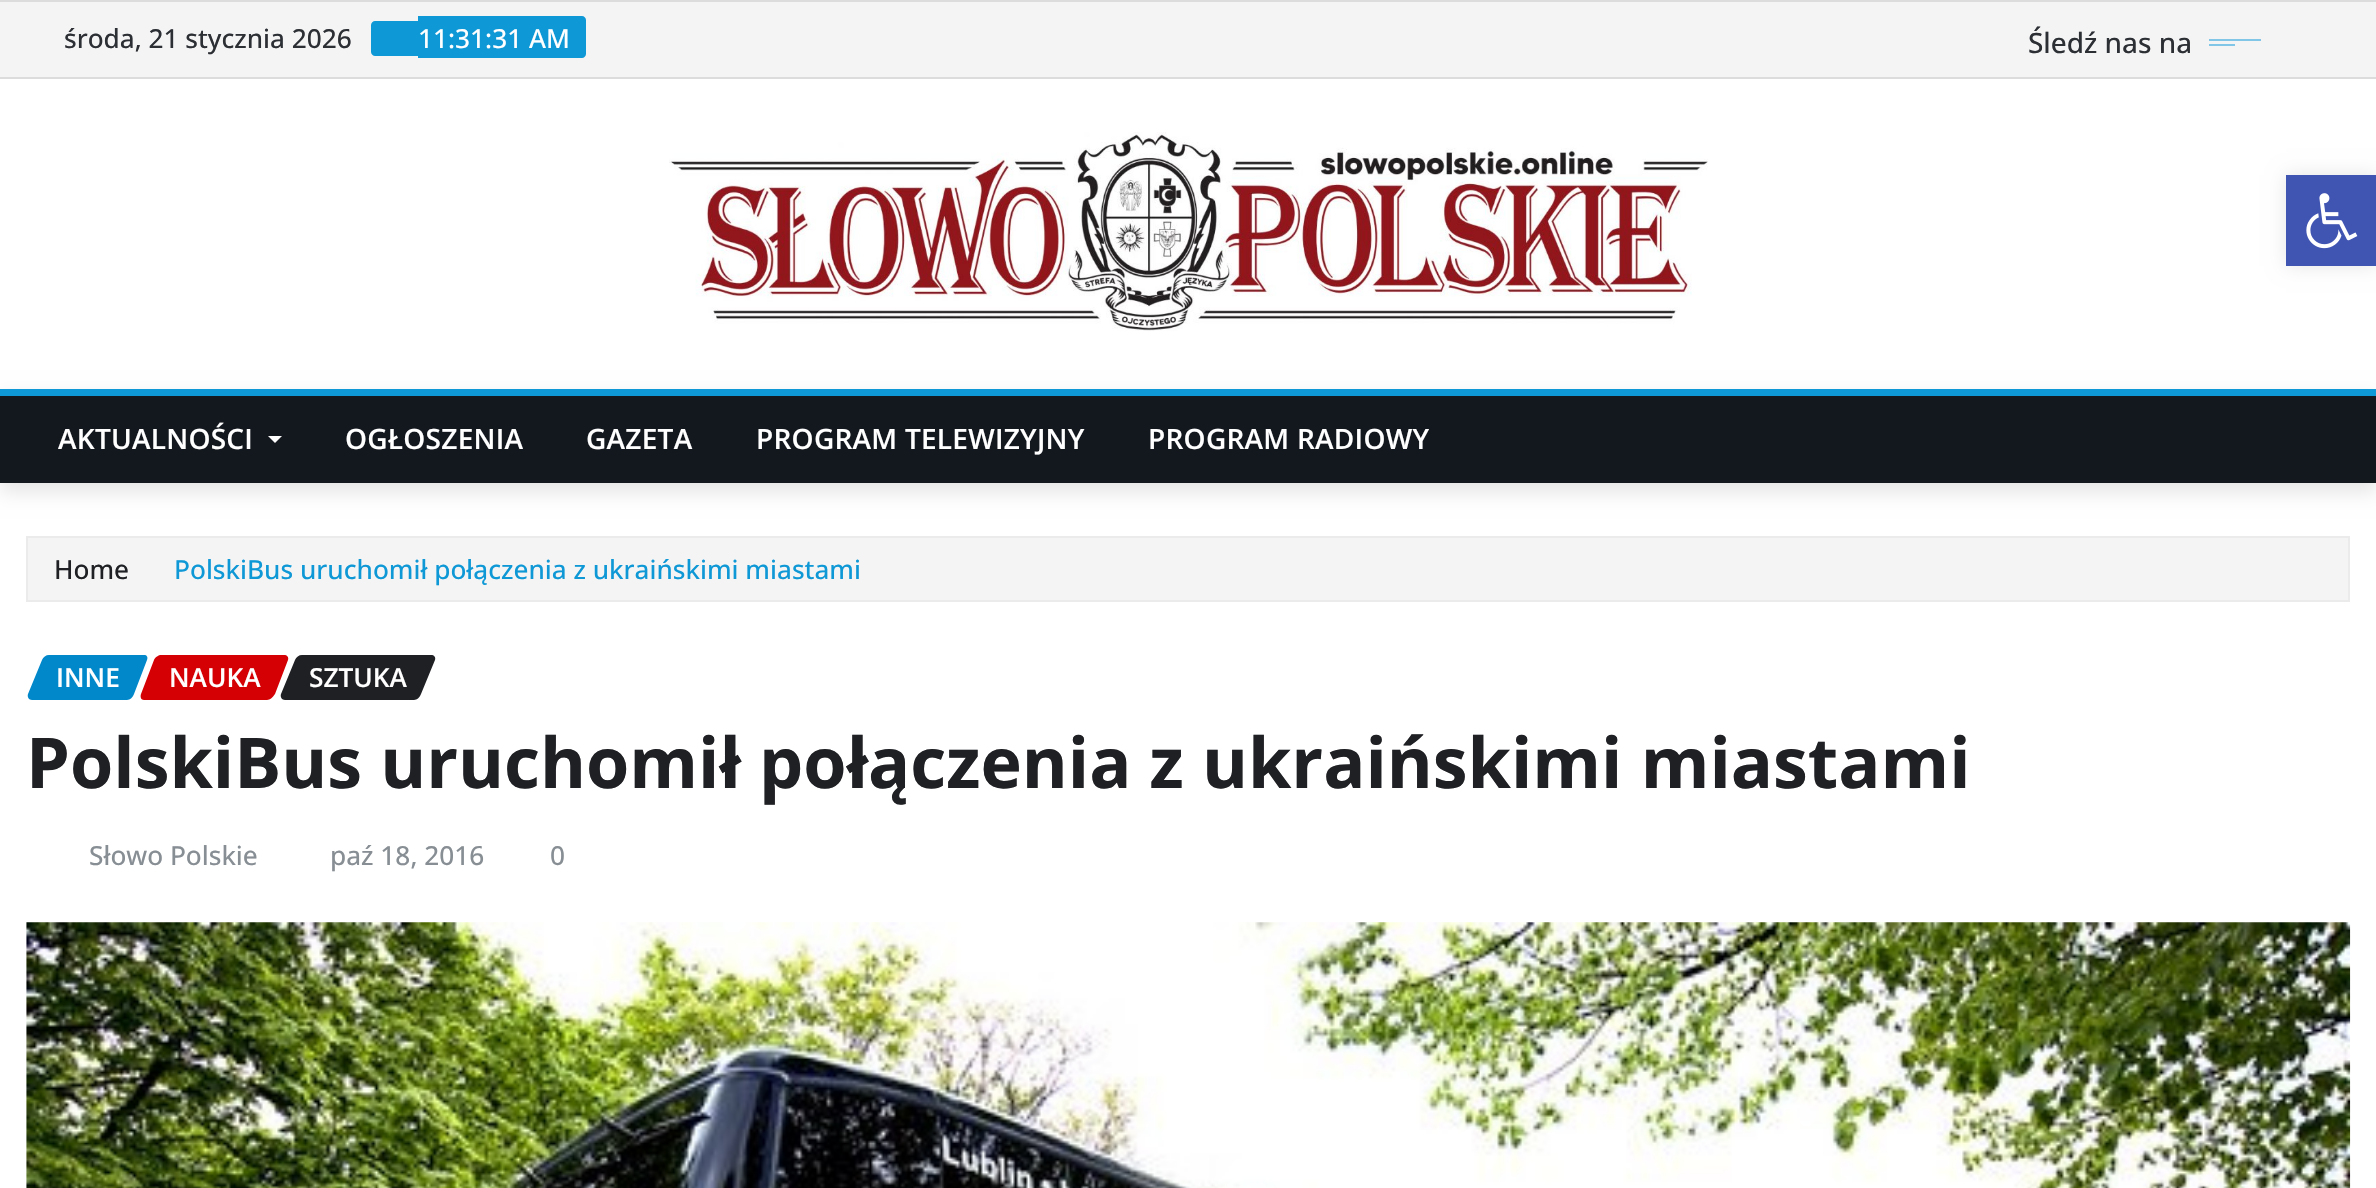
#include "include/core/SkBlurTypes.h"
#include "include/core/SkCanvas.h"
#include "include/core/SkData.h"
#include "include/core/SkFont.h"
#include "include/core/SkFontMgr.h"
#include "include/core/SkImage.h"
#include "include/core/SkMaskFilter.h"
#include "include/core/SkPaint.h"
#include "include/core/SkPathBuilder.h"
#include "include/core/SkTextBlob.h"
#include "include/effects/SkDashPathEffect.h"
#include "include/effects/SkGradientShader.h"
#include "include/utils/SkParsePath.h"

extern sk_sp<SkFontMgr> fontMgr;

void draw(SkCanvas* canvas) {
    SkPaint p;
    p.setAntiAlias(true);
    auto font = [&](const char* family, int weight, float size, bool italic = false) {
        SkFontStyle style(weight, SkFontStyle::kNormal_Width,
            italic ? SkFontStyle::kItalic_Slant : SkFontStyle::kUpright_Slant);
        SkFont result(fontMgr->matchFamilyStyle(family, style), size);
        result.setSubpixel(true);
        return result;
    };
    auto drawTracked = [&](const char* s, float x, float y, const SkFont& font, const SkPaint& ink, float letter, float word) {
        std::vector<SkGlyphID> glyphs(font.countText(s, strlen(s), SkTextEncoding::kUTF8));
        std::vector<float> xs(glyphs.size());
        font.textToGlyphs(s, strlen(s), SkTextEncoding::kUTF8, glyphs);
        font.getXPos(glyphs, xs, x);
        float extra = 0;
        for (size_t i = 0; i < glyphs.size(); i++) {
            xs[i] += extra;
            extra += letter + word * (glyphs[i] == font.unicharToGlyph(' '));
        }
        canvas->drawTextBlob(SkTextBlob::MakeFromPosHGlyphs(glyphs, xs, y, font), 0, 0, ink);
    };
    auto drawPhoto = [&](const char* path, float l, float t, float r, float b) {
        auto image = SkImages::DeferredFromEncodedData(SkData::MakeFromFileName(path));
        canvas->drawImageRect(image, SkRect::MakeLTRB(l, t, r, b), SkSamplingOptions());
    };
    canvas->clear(0xFFFFFFFF);
    {
        const struct { float l, t, r, b; SkColor color; } items[] = {
            {0, 2, 2376, 77, 0xFFF4F4F5},
            {0, 0, 2376, 2, 0xFFDCDCDD},
            {0, 77, 2376, 79, 0xFFDCDCDD},
        };
        for (auto [l, t, r, b, color] : items) {
            p.setColor(color);
            canvas->drawRect(SkRect::MakeLTRB(l, t, r, b), p);
        }
    }
    auto font1 = font("Open Sans", 500, 26.25f);
    p.setColor(0xFF2C2F34);
    canvas->drawString("środa, 21 stycznia 2026", 64, 48, font1, p);
    p.setColor(0xFF0E98D6);
    canvas->drawPath(SkPathBuilder().moveTo(418, 16).lineTo(582, 16).cubicTo(584, 16, 586, 18, 586, 20).lineTo(586, 54).cubicTo(586, 56, 584, 58, 582, 58).lineTo(418, 58).close().detach(), p);
    p.setColor(0xFFFFFFFF);
    canvas->drawString("11:31:31 AM", 418, 48, font1, p);
    p.setColor(0xFF0E98D6);
    canvas->drawPath(SkPathBuilder().moveTo(375, 21).lineTo(418, 21).lineTo(418, 56).lineTo(375, 56).cubicTo(373, 56, 371, 54, 371, 52).lineTo(371, 25).cubicTo(371, 23, 373, 21, 375, 21).close().detach(), p);
    auto font2 = font("Open Sans", 500, 28);
    p.setColor(0xFF2C2F34);
    canvas->drawString("Śledź nas na", 2028, 53, font2, p);
    p.setColor(0xFF81C6E6);
    canvas->drawRect(SkRect::MakeLTRB(2209, 39, 2261, 41), p);
    canvas->drawRect(SkRect::MakeLTRB(2209, 44, 2235, 46), p);
    drawPhoto("media/1.png", 669, 132, 1708, 331);
    p.setColor(0x1A000000);
    p.setMaskFilter(SkMaskFilter::MakeBlur(kNormal_SkBlurStyle, 9));
    canvas->drawRect(SkRect::MakeLTRB(0, 397, 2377, 492), p);
    p.setMaskFilter(nullptr);
    p.setColor(0xFF13171E);
    canvas->drawRect(SkRect::MakeLTRB(0, 396, 2376, 483), p);
    p.setColor(0xFF0E98D6);
    canvas->drawRect(SkRect::MakeLTRB(0, 389, 2376, 396), p);
    auto font3 = font("Open Sans", 600, 28);
    p.setColor(0xFFFFFFFF);
    drawTracked("AKTUALNOŚCI", 58, 449, font3, p, 0.25f, 0);
    canvas->drawPath(SkPathBuilder().moveTo(268, 436).lineTo(282, 436).lineTo(275, 443).close().detach(), p);
    {
        const struct { const char* s; float x, y; } items[] = {
            {"OGŁOSZENIA", 345, 449},
            {"GAZETA", 586, 449},
            {"PROGRAM TELEWIZYJNY", 756, 449},
            {"PROGRAM RADIOWY", 1148, 449},
        };
        for (auto [s, x, y] : items) {
            drawTracked(s, x, y, font3, p, 0.25f, 0);
        }
    }
    p.setColor(0xFFF4F4F5);
    canvas->drawRect(SkRect::MakeLTRB(27, 537, 2349, 601), p);
    p.setStyle(SkPaint::kStroke_Style);
    p.setStrokeWidth(2);
    p.setColor(0xFFEBEBEB);
    canvas->drawRect(SkRect::MakeLTRB(27, 537, 2349, 601), p);
    p.setStyle(SkPaint::kFill_Style);
    p.setColor(0xFF1F2024);
    canvas->drawString("Home", 54, 579, font1, p);
    p.setColor(0xFF0E98D6);
    canvas->drawString("PolskiBus uruchomił połączenia z ukraińskimi miastami", 174, 579, font1, p);
    p.setColor(0xFF0088CB);
    canvas->drawPath(SkPathBuilder().moveTo(49, 655).lineTo(144, 655).cubicTo(147, 655, 148, 657, 147, 660).lineTo(134, 694).cubicTo(133, 697, 130, 700, 127, 700).lineTo(32, 700).cubicTo(29, 700, 27, 697, 28, 694).lineTo(42, 660).cubicTo(43, 657, 46, 655, 49, 655).close().detach(), p);
    auto font4 = font("Open Sans", 600, 26.25f);
    p.setColor(0xFFFFFFFF);
    canvas->drawString("INNE", 56, 687, font4, p);
    p.setColor(0xFFD40004);
    canvas->drawPath(SkPathBuilder().moveTo(161, 655).lineTo(284, 655).cubicTo(287, 655, 289, 657, 288, 660).lineTo(275, 694).cubicTo(273, 697, 270, 700, 267, 700).lineTo(144, 700).cubicTo(141, 700, 140, 697, 141, 694).lineTo(154, 660).cubicTo(155, 657, 159, 655, 161, 655).close().detach(), p);
    p.setColor(0xFFFFFFFF);
    canvas->drawString("NAUKA", 169, 687, font4, p);
    p.setColor(0xFF1F2024);
    canvas->drawPath(SkPathBuilder().moveTo(302, 655).lineTo(431, 655).cubicTo(434, 655, 436, 657, 435, 660).lineTo(421, 694).cubicTo(420, 697, 417, 700, 414, 700).lineTo(285, 700).cubicTo(282, 700, 280, 697, 281, 694).lineTo(295, 660).cubicTo(296, 657, 299, 655, 302, 655).close().detach(), p);
    p.setColor(0xFFFFFFFF);
    canvas->drawString("SZTUKA", 309, 687, font4, p);
    auto font5 = font("Open Sans", 700, 70);
    p.setColor(0xFF1F2024);
    canvas->drawString("PolskiBus uruchomił połączenia z ukraińskimi miastami", 26, 788, font5, p);
    p.setColor(0xFF878E94);
    {
        const struct { const char* s; float x, y; } items[] = {
            {"Słowo Polskie", 89, 865},
            {"paź 18, 2016", 330, 865},
            {"0", 550, 865},
        };
        for (auto [s, x, y] : items) {
            canvas->drawString(s, x, y, font1, p);
        }
    }
    drawPhoto("media/2.png", 26, 922, 2351, 1188);
    p.setColor(0x1A000000);
    p.setMaskFilter(SkMaskFilter::MakeBlur(kNormal_SkBlurStyle, 9));
    canvas->drawRect(SkRect::MakeLTRB(2286, 175, 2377, 266), p);
    p.setMaskFilter(nullptr);
    p.setColor(0xFF4054B2);
    canvas->drawRect(SkRect::MakeLTRB(2286, 175, 2376, 266), p);
    drawPhoto("media/3.png", 2306, 193, 2358, 249);
}
